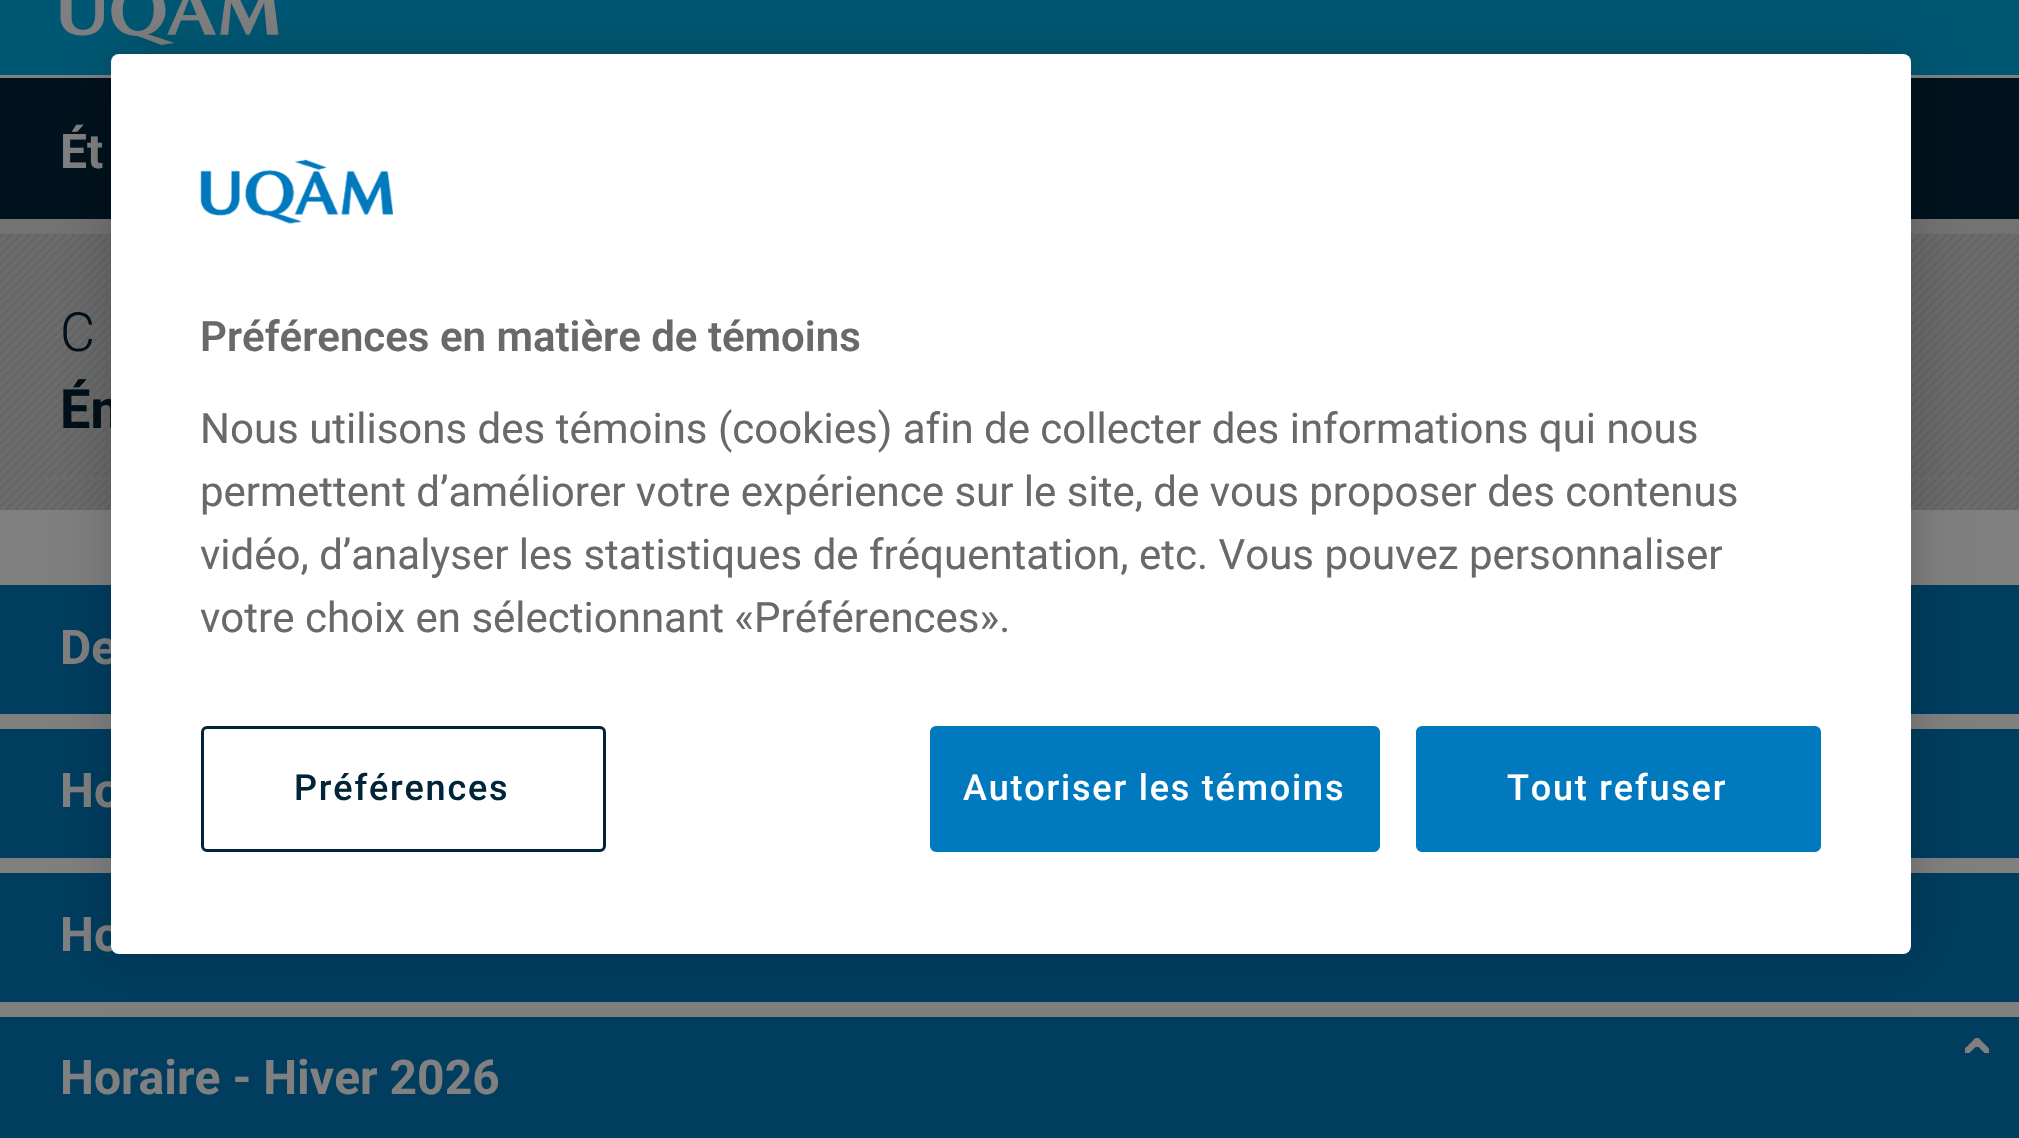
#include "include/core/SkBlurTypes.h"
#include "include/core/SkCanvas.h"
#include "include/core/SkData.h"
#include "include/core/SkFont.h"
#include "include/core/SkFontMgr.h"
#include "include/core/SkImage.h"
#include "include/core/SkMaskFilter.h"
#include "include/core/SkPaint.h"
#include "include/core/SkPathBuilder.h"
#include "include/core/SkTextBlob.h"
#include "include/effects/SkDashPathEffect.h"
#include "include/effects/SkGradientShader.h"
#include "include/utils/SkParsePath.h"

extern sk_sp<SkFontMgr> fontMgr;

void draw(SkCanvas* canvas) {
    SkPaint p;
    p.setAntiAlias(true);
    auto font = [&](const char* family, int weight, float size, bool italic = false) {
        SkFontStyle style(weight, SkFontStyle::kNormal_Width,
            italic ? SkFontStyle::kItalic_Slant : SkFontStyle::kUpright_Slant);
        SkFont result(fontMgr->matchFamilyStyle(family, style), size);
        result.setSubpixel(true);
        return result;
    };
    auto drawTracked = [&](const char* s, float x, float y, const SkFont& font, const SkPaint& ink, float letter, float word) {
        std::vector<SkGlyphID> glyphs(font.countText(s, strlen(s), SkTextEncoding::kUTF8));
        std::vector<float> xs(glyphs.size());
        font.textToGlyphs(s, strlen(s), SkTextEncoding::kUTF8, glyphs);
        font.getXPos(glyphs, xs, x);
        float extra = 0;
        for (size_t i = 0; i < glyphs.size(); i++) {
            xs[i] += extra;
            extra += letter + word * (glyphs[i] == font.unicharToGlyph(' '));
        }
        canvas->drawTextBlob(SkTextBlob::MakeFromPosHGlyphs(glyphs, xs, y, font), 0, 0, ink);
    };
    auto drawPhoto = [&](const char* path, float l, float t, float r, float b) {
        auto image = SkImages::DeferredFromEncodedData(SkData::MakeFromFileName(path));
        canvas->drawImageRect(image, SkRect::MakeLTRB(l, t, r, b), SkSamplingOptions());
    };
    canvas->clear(0xFF808080);
    p.setColor(0xFF005773);
    canvas->drawRect(SkRect::MakeLTRB(0, 0, 2019, 75), p);
    drawPhoto("media/1.png", 60, 0, 279, 45);
    p.setColor(0xFF00121D);
    canvas->drawRect(SkRect::MakeLTRB(0, 78, 2019, 219), p);
    auto font1 = font("Roboto", 700, 48);
    p.setColor(0xFF808080);
    canvas->drawString("Ét", 60, 168, font1, p);
    p.setColor(0xFF737373);
    canvas->drawRect(SkRect::MakeLTRB(0, 219, 2019, 234), p);
    drawPhoto("media/2.png", 0, 234, 2019, 510);
    p.setColor(0xFF6B6B6B);
    canvas->drawRect(SkRect::MakeLTRB(45, 477, 1974, 480), p);
    auto font2 = font("Roboto", 300, 54);
    p.setColor(0xFF000F18);
    canvas->drawString("C", 60, 351, font2, p);
    auto font3 = font("Roboto", 700, 54);
    canvas->drawString("Én", 60, 428, font3, p);
    p.setColor(0xFF003D5F);
    canvas->drawRect(SkRect::MakeLTRB(0, 585, 2019, 714), p);
    p.setColor(0xFF808080);
    canvas->drawString("De", 60, 664, font1, p);
    p.setColor(0xFF003D5F);
    canvas->drawRect(SkRect::MakeLTRB(0, 729, 2019, 858), p);
    p.setColor(0xFF808080);
    canvas->drawString("Ho", 60, 807, font1, p);
    p.setColor(0xFF003D5F);
    canvas->drawRect(SkRect::MakeLTRB(0, 873, 2019, 1002), p);
    p.setColor(0xFF808080);
    canvas->drawString("Ho", 60, 951, font1, p);
    p.setColor(0xFF003D5F);
    canvas->drawRect(SkRect::MakeLTRB(0, 1017, 2019, 1138), p);
    p.setColor(0xFF808080);
    canvas->drawString("Horaire - Hiver 2026", 60, 1094, font1, p);
    drawPhoto("media/3.png", 1965, 1038, 1989, 1053);
    p.setColor(0x33000000);
    p.setMaskFilter(SkMaskFilter::MakeBlur(kNormal_SkBlurStyle, 27));
    canvas->drawRoundRect(SkRect::MakeLTRB(111, 54, 1911, 954), 8, 8, p);
    p.setMaskFilter(nullptr);
    p.setColor(0xFFFFFFFF);
    canvas->drawRoundRect(SkRect::MakeLTRB(111, 54, 1911, 954), 8, 8, p);
    drawPhoto("media/4.png", 200, 159, 393, 224);
    auto font4 = font("Roboto", 600, 42);
    p.setColor(0xFF696969);
    canvas->drawString("Préférences en matière de témoins", 200, 351, font4, p);
    auto font5 = font("Roboto", 400, 42);
    {
        const struct { const char* s; float x, y; } items[] = {
            {"Nous utilisons des témoins (cookies) afin de collecter des informations qui nous", 200, 443},
            {"permettent d’améliorer votre expérience sur le site, de vous proposer des contenus", 200, 506},
            {"vidéo, d’analyser les statistiques de fréquentation, etc. Vous pouvez personnaliser", 200, 569},
            {"votre choix en sélectionnant « Préférences ».", 200, 632},
        };
        for (auto [s, x, y] : items) {
            canvas->drawString(s, x, y, font5, p);
        }
    }
    p.setStyle(SkPaint::kStroke_Style);
    p.setStrokeWidth(3);
    p.setColor(0xFF002539);
    canvas->drawRoundRect(SkRect::MakeLTRB(202.5f, 727.5f, 604.5f, 850.5f), 4.5f, 4.5f, p);
    auto font6 = font("Roboto", 500, 36);
    p.setStyle(SkPaint::kFill_Style);
    drawTracked("Préférences", 294, 800, font6, p, 1.8f, 0);
    p.setColor(0xFF0079BE);
    canvas->drawRoundRect(SkRect::MakeLTRB(931.5f, 727.5f, 1378.5f, 850.5f), 4.5f, 4.5f, p);
    p.setStyle(SkPaint::kStroke_Style);
    canvas->drawRoundRect(SkRect::MakeLTRB(931.5f, 727.5f, 1378.5f, 850.5f), 4.5f, 4.5f, p);
    p.setStyle(SkPaint::kFill_Style);
    p.setColor(0xFFFFFFFF);
    drawTracked("Autoriser les témoins", 963, 800, font6, p, 1.8f, 0);
    p.setColor(0xFF0079BE);
    canvas->drawRoundRect(SkRect::MakeLTRB(1417.5f, 727.5f, 1819.5f, 850.5f), 4.5f, 4.5f, p);
    p.setStyle(SkPaint::kStroke_Style);
    canvas->drawRoundRect(SkRect::MakeLTRB(1417.5f, 727.5f, 1819.5f, 850.5f), 4.5f, 4.5f, p);
    p.setStyle(SkPaint::kFill_Style);
    p.setColor(0xFFFFFFFF);
    drawTracked("Tout refuser", 1507, 800, font6, p, 1.8f, 0);
}
